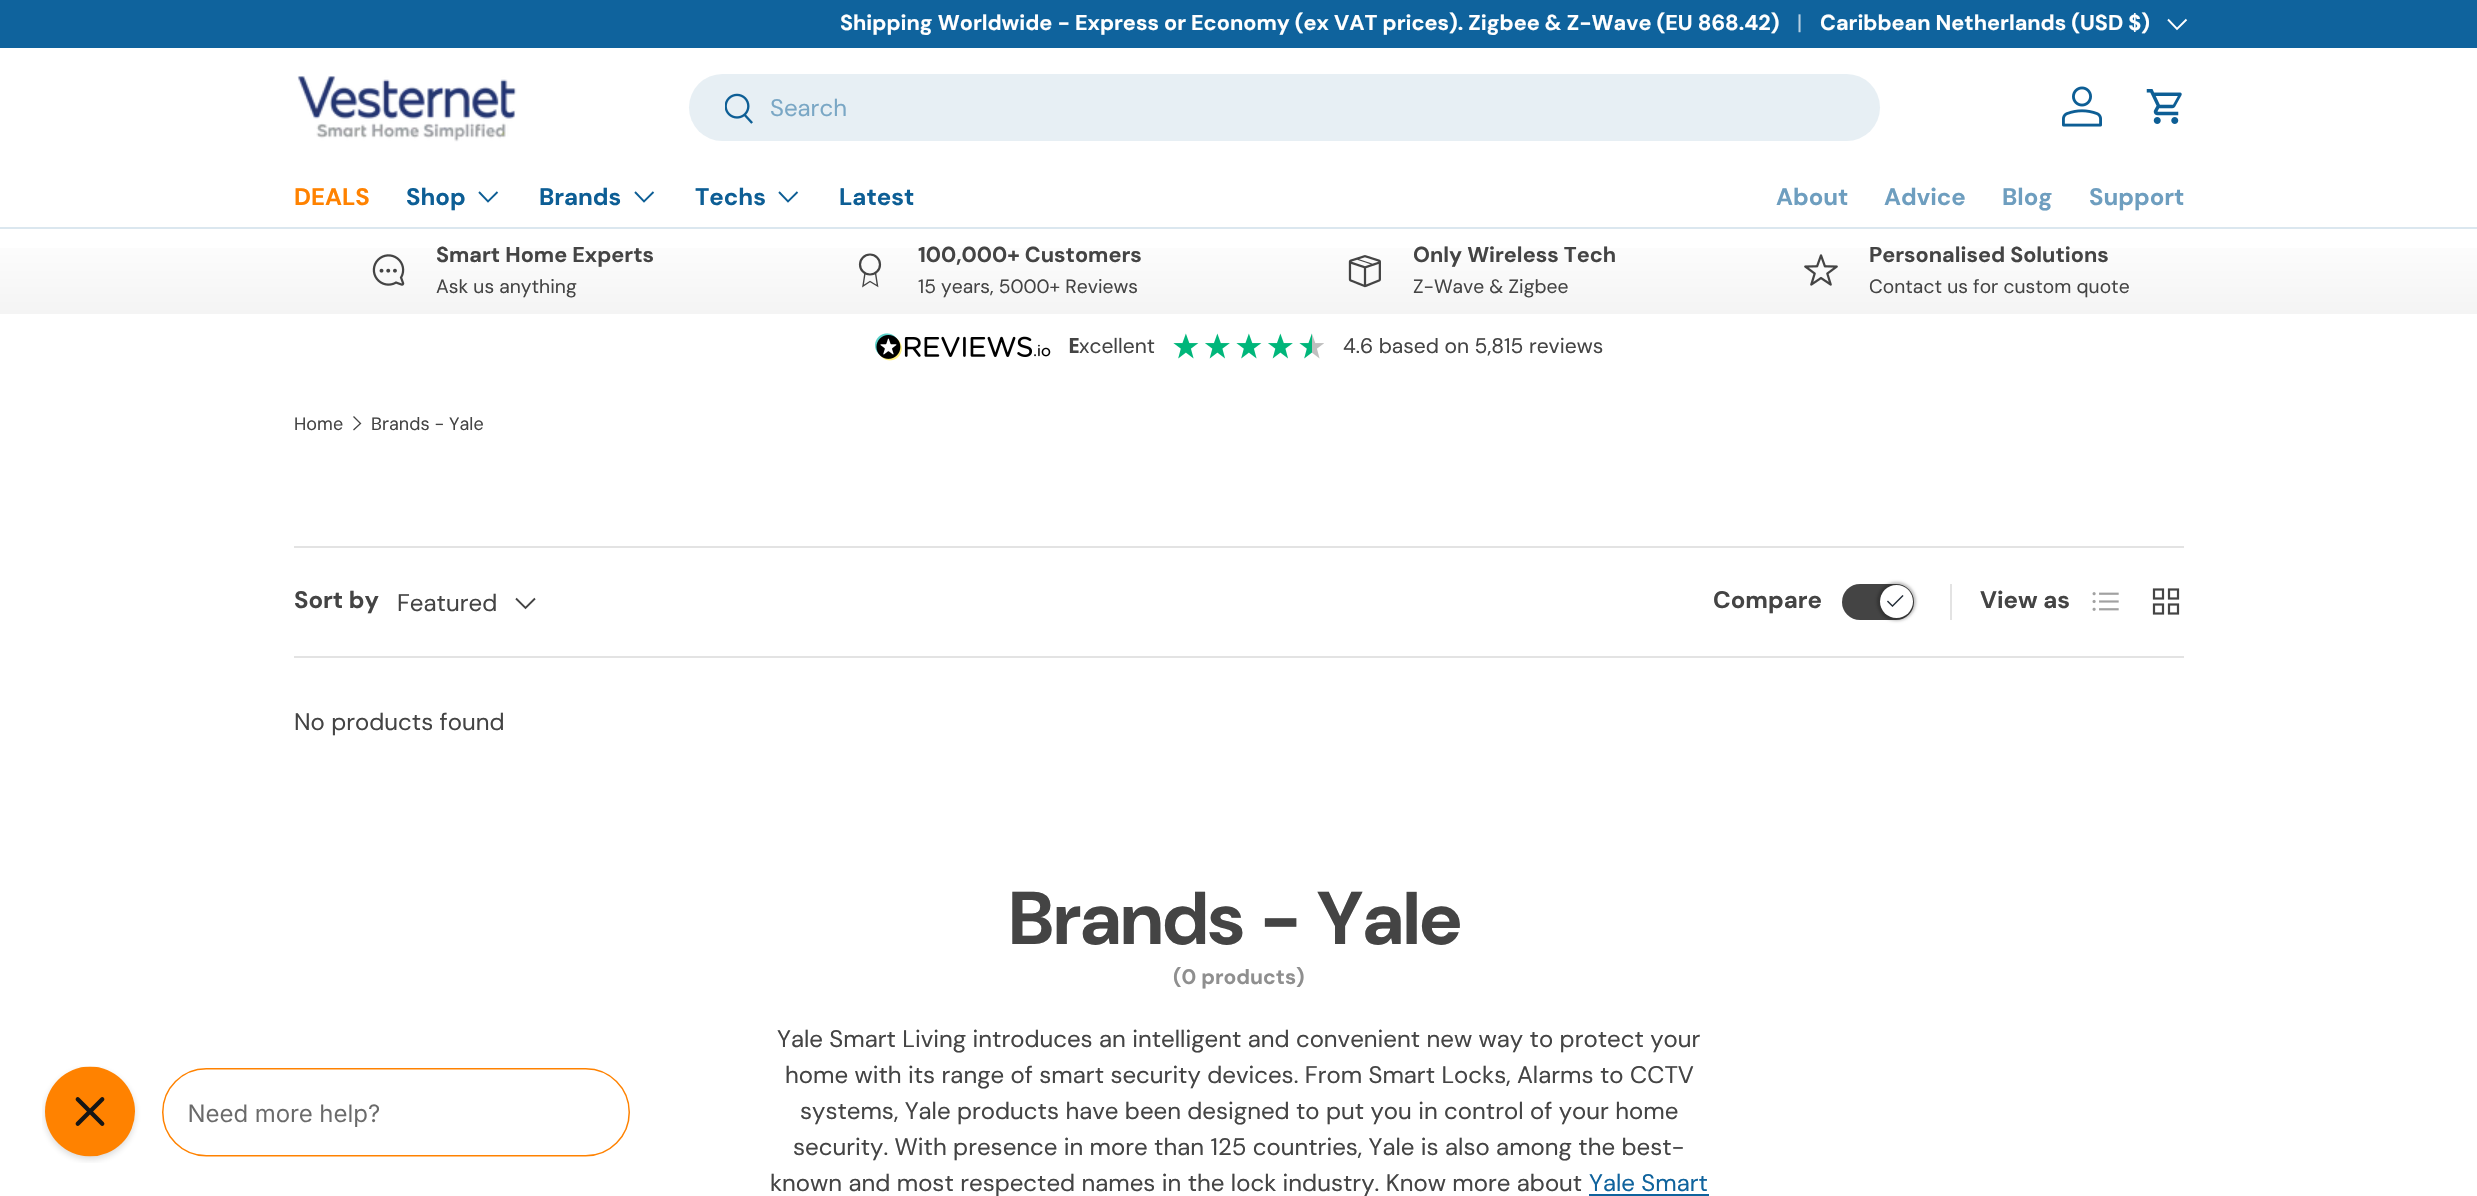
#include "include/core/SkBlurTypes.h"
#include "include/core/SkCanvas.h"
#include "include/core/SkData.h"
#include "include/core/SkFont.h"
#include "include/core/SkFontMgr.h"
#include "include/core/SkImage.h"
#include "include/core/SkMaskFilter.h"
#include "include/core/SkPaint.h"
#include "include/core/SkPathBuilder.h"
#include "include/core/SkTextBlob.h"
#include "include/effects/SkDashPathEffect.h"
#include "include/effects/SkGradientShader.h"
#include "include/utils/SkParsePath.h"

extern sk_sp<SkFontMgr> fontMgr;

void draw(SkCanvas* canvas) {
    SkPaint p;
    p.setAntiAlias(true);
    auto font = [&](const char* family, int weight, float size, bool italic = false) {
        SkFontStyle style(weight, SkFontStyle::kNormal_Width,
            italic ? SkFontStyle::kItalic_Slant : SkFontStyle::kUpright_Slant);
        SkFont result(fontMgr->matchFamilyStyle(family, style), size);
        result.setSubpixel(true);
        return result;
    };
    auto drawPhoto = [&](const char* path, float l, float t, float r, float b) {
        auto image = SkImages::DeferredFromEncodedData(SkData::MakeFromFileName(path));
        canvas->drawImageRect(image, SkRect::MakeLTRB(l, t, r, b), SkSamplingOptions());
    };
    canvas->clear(0xFFFFFFFF);
    p.setColor(0xFF0F639D);
    canvas->drawRect(SkRect::MakeLTRB(0, 0, 2477, 48), p);
    auto font1 = font("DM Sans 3", 700, 21.6f);
    p.setColor(0xFFFFFFFF);
    canvas->drawString("Shipping Worldwide - Express or Economy (ex VAT prices). Zigbee & Z-Wave (EU 868.42)", 840, 30, font1, p);
    auto font2 = font("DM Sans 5", 400, 21.6f);
    p.setColor(0xFFB7D0E2);
    canvas->drawString("|", 1797, 30, font2, p);
    p.setColor(0xFFFFFFFF);
    canvas->drawString("Caribbean Netherlands (USD $)", 1820, 30, font1, p);
    p.setStyle(SkPaint::kStroke_Style);
    p.setStrokeWidth(1.9f);
    canvas->drawPath(SkPathBuilder().moveTo(2186.5f, 19.5f).lineTo(2177, 29).lineTo(2168, 19.5f).detach(), p);
    p.setStyle(SkPaint::kFill_Style);
    p.setColor(0xFFDBE7EF);
    canvas->drawRect(SkRect::MakeLTRB(0, 227, 2477, 229), p);
    drawPhoto("media/1.png", 297, 76, 517, 142);
    p.setColor(0xFFE7EFF4);
    canvas->drawRoundRect(SkRect::MakeLTRB(689, 74, 1880, 141), 33.5f, 33.5f, p);
    drawPhoto("media/2.png", 725, 93, 753, 124);
    auto font3 = font("DM Sans", 400, 24);
    p.setColor(0xFF7AA7C5);
    canvas->drawString("Search", 770, 116, font3, p);
    drawPhoto("media/3.png", 2062, 86, 2102, 127);
    drawPhoto("media/4.png", 2146, 89, 2182, 124);
    auto font4 = font("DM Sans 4", 700, 24);
    p.setColor(0xFFFF8200);
    canvas->drawString("DEALS", 294, 205, font4, p);
    p.setColor(0xFF0D5E95);
    canvas->drawString("Shop", 406, 205, font4, p);
    p.setStyle(SkPaint::kStroke_Style);
    canvas->drawPath(SkPathBuilder().moveTo(497.5f, 192).lineTo(488, 201.5f).lineTo(479, 192).detach(), p);
    p.setStyle(SkPaint::kFill_Style);
    canvas->drawString("Brands", 539, 205, font4, p);
    p.setStyle(SkPaint::kStroke_Style);
    canvas->drawPath(SkPathBuilder().moveTo(653.5f, 192).lineTo(644, 201.5f).lineTo(635, 192).detach(), p);
    p.setStyle(SkPaint::kFill_Style);
    canvas->drawString("Techs", 695, 205, font4, p);
    p.setStyle(SkPaint::kStroke_Style);
    canvas->drawPath(SkPathBuilder().moveTo(797.5f, 192).lineTo(788, 201.5f).lineTo(779, 192).detach(), p);
    p.setStyle(SkPaint::kFill_Style);
    canvas->drawString("Latest", 839, 205, font4, p);
    p.setColor(0xFF6E9EBF);
    {
        const struct { const char* s; float x, y; } items[] = {
            {"About", 1776, 205},
            {"Advice", 1884, 205},
            {"Blog", 2002, 205},
            {"Support", 2089, 205},
        };
        for (auto [s, x, y] : items) {
            canvas->drawString(s, x, y, font4, p);
        }
    }
    {
        const SkColor colors[] = {0xFFFFFFFF, 0xFFF4F4F4};
        const float stops[] = {0, 1};
        const SkPoint ends[] = {{1239, 228}, {1239, 314}};
        p.setShader(SkGradientShader::MakeLinear(ends, colors, stops, 2, SkTileMode::kClamp));
        p.setAlpha(255);
    }
    canvas->drawRect(SkRect::MakeLTRB(0, 248, 2477, 314), p);
    drawPhoto("media/5.png", 372, 254, 405, 286);
    p.setShader(nullptr);
    p.setColor(0xFF444444);
    canvas->drawString("Smart Home Experts", 436, 262, font1, p);
    auto font5 = font("DM Sans 3", 400, 19.25f);
    canvas->drawString("Ask us anything", 436, 293, font5, p);
    p.setStyle(SkPaint::kStroke_Style);
    p.setStrokeWidth(2.2f);
    canvas->drawCircle(870, 264.5f, 10, p);
    p.setStrokeWidth(1.4f);
    canvas->drawPath(SkPathBuilder().moveTo(865, 273).lineTo(863, 286).lineTo(870, 281.5f).lineTo(877.5f, 286).lineTo(875.5f, 273).detach(), p);
    p.setStyle(SkPaint::kFill_Style);
    canvas->drawString("100,000+ Customers", 918, 262, font1, p);
    canvas->drawString("15 years, 5000+ Reviews", 918, 293, font5, p);
    drawPhoto("media/6.png", 1348, 255, 1381, 288);
    canvas->drawString("Only Wireless Tech", 1413, 262, font1, p);
    canvas->drawString("Z-Wave & Zigbee", 1413, 293, font5, p);
    drawPhoto("media/7.png", 1804, 254, 1838, 286);
    canvas->drawString("Personalised Solutions", 1869, 262, font1, p);
    canvas->drawString("Contact us for custom quote", 1869, 293, font5, p);
    drawPhoto("media/8.png", 875, 333, 1051, 361);
    auto font6 = font("Noto Sans", 700, 21);
    canvas->drawString("E", 1068, 353, font6, p);
    auto font7 = font("DM Sans 4", 400, 21);
    canvas->drawString("xcellent", 1079, 353, font7, p);
    drawPhoto("media/9.png", 1173, 333, 1199, 359);
    drawPhoto("media/10.png", 1205, 333, 1230, 359);
    drawPhoto("media/9.png", 1236, 333, 1262, 359);
    drawPhoto("media/10.png", 1268, 333, 1293, 359);
    drawPhoto("media/11.png", 1299, 333, 1324, 359);
    canvas->drawString("4.6 based on 5,815 reviews", 1343, 353, font7, p);
    auto font8 = font("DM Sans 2", 400, 18);
    canvas->drawString("Home", 294, 430, font8, p);
    p.setStyle(SkPaint::kStroke_Style);
    p.setStrokeWidth(1.3f);
    canvas->drawPath(SkPathBuilder().moveTo(353.5f, 416.5f).lineTo(360.5f, 423.5f).lineTo(353.5f, 430).detach(), p);
    p.setStyle(SkPaint::kFill_Style);
    canvas->drawString("Brands - Yale", 371, 430, font8, p);
    p.setColor(0xFFE3E3E3);
    canvas->drawRect(SkRect::MakeLTRB(294, 546, 2184, 548), p);
    canvas->drawRect(SkRect::MakeLTRB(294, 656, 2184, 658), p);
    p.setColor(0xFF444444);
    canvas->drawString("Sort by", 294, 608, font4, p);
    canvas->drawString("Featured", 397, 611, font3, p);
    p.setStyle(SkPaint::kStroke_Style);
    p.setStrokeWidth(1.9f);
    canvas->drawPath(SkPathBuilder().moveTo(535, 598.5f).lineTo(525.5f, 608).lineTo(516, 598.5f).detach(), p);
    p.setStyle(SkPaint::kFill_Style);
    canvas->drawRoundRect(SkRect::MakeLTRB(1842, 584, 1914, 620), 18, 18, p);
    p.setColor(0x40000000);
    p.setMaskFilter(SkMaskFilter::MakeBlur(kNormal_SkBlurStyle, 1.5f));
    canvas->drawRoundRect(SkRect::MakeLTRB(1877, 582, 1916, 621), 19.5f, 19.5f, p);
    p.setMaskFilter(nullptr);
    p.setColor(0xFFFFFFFF);
    canvas->drawCircle(1896.5f, 601.5f, 16.5f, p);
    drawPhoto("media/12.png", 1887, 595, 1904, 607);
    p.setColor(0xFF444444);
    canvas->drawString("Compare", 1713, 608, font4, p);
    p.setColor(0xFFE3E3E3);
    canvas->drawRect(SkRect::MakeLTRB(1950, 584, 1952, 620), p);
    p.setColor(0xFF444444);
    canvas->drawString("View as", 1980, 608, font4, p);
    drawPhoto("media/13.png", 2092, 592, 2119, 611);
    drawPhoto("media/14.png", 2152, 588, 2180, 615);
    canvas->drawString("No products found", 294, 730, font3, p);
    auto font9 = font("DM Sans", 700, 74.5f);
    canvas->drawString("Brands - Yale", 1009, 944, font9, p);
    auto font10 = font("DM Sans 2", 700, 21);
    p.setColor(0xFF8F8F8F);
    canvas->drawString("(0 products)", 1173, 984, font10, p);
    p.setColor(0xFF444444);
    {
        const struct { const char* s; float x, y; } items[] = {
            {"Yale Smart Living introduces an intelligent and convenient new way to protect your", 777, 1047},
            {"home with its range of smart security devices. From Smart Locks, Alarms to CCTV", 785, 1083},
            {"systems, Yale products have been designed to put you in control of your home", 800, 1119},
            {"security. With presence in more than 125 countries, Yale is also among the best-", 793, 1155},
            {"known and most respected names in the lock industry. Know more about", 770, 1191},
        };
        for (auto [s, x, y] : items) {
            canvas->drawString(s, x, y, font3, p);
        }
    }
    p.setColor(0xFF0F639D);
    canvas->drawString("Yale Smart", 1589, 1191, font3, p);
    canvas->drawRect(SkRect::MakeLTRB(1589, 1194, 1709, 1196), p);
    drawPhoto("media/15.png", 42, 1066, 630, 1163);
}
